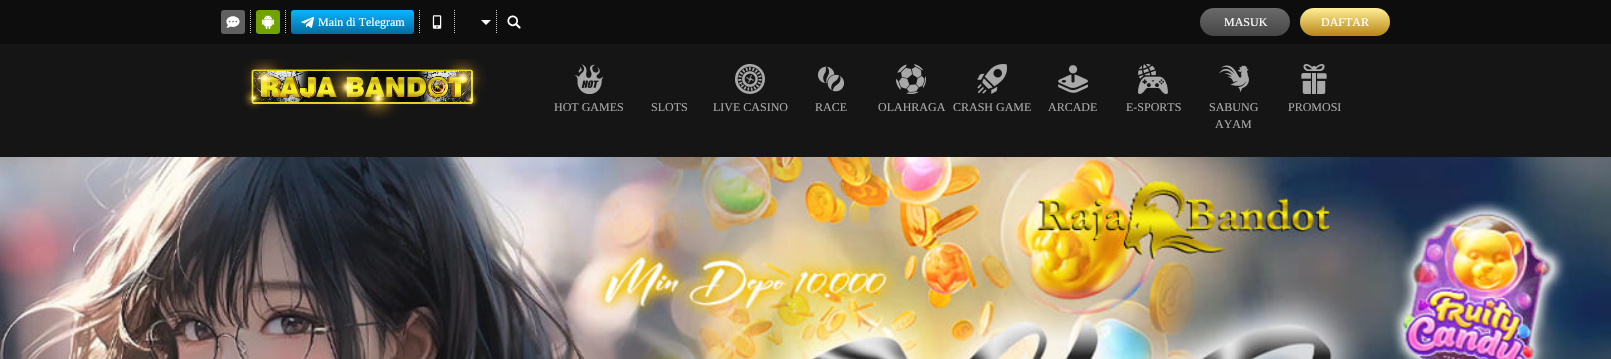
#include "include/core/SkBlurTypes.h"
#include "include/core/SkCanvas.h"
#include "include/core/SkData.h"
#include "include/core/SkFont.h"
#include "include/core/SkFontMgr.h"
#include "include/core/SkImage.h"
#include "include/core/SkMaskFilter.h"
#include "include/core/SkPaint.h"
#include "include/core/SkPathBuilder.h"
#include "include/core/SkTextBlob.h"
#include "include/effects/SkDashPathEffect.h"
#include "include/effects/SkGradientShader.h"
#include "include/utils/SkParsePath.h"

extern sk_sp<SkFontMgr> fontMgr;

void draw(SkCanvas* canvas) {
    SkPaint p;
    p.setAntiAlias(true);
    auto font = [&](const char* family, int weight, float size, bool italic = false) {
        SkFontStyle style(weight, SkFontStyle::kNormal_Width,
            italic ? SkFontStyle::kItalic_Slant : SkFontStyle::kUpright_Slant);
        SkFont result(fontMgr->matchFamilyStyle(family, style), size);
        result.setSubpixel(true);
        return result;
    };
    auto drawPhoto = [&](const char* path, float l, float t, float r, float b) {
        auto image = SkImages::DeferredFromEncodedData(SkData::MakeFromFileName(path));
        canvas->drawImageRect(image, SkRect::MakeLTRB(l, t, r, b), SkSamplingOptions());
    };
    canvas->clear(0xFF0D0D0D);
    p.setColor(0xFF606060);
    canvas->drawRoundRect(SkRect::MakeLTRB(221, 10, 245, 34), 3, 3, p);
    drawPhoto("media/1.png", 226, 16, 240, 28);
    p.setStyle(SkPaint::kStroke_Style);
    p.setStrokeWidth(1);
    p.setColor(0xFFCCCCCC);
    p.setPathEffect(SkDashPathEffect::Make({{1, 1}}, 0));
    canvas->drawPath(SkPathBuilder().moveTo(250.5f, 10).lineTo(250.5f, 34).detach(), p);
    p.setPathEffect(nullptr);
    p.setStyle(SkPaint::kFill_Style);
    p.setColor(0xFF72A200);
    canvas->drawRoundRect(SkRect::MakeLTRB(256, 10, 280, 34), 3, 3, p);
    drawPhoto("media/2.png", 262, 15, 274, 29);
    p.setStyle(SkPaint::kStroke_Style);
    p.setColor(0xFFCCCCCC);
    p.setPathEffect(SkDashPathEffect::Make({{1, 1}}, 0));
    canvas->drawPath(SkPathBuilder().moveTo(285.5f, 10).lineTo(285.5f, 34).detach(), p);
    p.setPathEffect(nullptr);
    p.setStyle(SkPaint::kFill_Style);
    {
        const SkColor colors[] = {0xFF0BB4FF, 0xFF036CA0};
        const float stops[] = {0, 1};
        const SkPoint ends[] = {{353, 10}, {353, 34}};
        p.setShader(SkGradientShader::MakeLinear(ends, colors, stops, 2, SkTileMode::kClamp));
        p.setAlpha(255);
    }
    canvas->drawRoundRect(SkRect::MakeLTRB(291, 10, 414, 34), 3, 3, p);
    drawPhoto("media/3.png", 301, 17, 314, 28);
    auto font1 = font("Liberation Serif", 400, 12);
    p.setShader(nullptr);
    p.setColor(0xFFFFFFFF);
    canvas->drawString("Main di Telegram", 318, 26, font1, p);
    p.setStyle(SkPaint::kStroke_Style);
    p.setColor(0xFFCCCCCC);
    p.setPathEffect(SkDashPathEffect::Make({{1, 1}}, 0));
    canvas->drawPath(SkPathBuilder().moveTo(419.5f, 10).lineTo(419.5f, 34).detach(), p);
    p.setPathEffect(nullptr);
    drawPhoto("media/4.png", 432, 15, 442, 29);
    p.setPathEffect(SkDashPathEffect::Make({{1, 1}}, 0));
    canvas->drawPath(SkPathBuilder().moveTo(454.5f, 10).lineTo(454.5f, 34).detach(), p);
    p.setPathEffect(nullptr);
    p.setStyle(SkPaint::kFill_Style);
    p.setColor(0xFFFFFFFF);
    canvas->drawPath(SkPathBuilder().moveTo(481, 20).lineTo(491, 20).lineTo(486, 25).close().detach(), p);
    p.setStyle(SkPaint::kStroke_Style);
    p.setColor(0xFFCCCCCC);
    p.setPathEffect(SkDashPathEffect::Make({{1, 1}}, 0));
    canvas->drawPath(SkPathBuilder().moveTo(496.5f, 10).lineTo(496.5f, 34).detach(), p);
    p.setPathEffect(nullptr);
    drawPhoto("media/5.png", 507, 15, 521, 29);
    p.setStyle(SkPaint::kFill_Style);
    {
        const SkColor colors[] = {0xFF6A6A6A, 0xFF464646};
        const float stops[] = {0, 1};
        const SkPoint ends[] = {{1245, 8}, {1245, 36}};
        p.setShader(SkGradientShader::MakeLinear(ends, colors, stops, 2, SkTileMode::kClamp));
        p.setAlpha(255);
    }
    canvas->drawRoundRect(SkRect::MakeLTRB(1200, 8, 1290, 36), 14, 14, p);
    p.setShader(nullptr);
    p.setColor(0xFFFFFFFF);
    canvas->drawString("MASUK", 1224, 26, font1, p);
    {
        const SkColor colors[] = {0xFFFFF095, 0xFFB88416};
        const float stops[] = {0, 1};
        const SkPoint ends[] = {{1345, 8}, {1345, 36}};
        p.setShader(SkGradientShader::MakeLinear(ends, colors, stops, 2, SkTileMode::kClamp));
        p.setAlpha(255);
    }
    canvas->drawRoundRect(SkRect::MakeLTRB(1300, 8, 1390, 36), 14, 14, p);
    p.setShader(nullptr);
    p.setColor(0xFFFFFFFF);
    canvas->drawString("DAFTAR", 1321, 26, font1, p);
    p.setColor(0xFF151515);
    canvas->drawRect(SkRect::MakeLTRB(0, 44, 1611, 157), p);
    drawPhoto("media/6.png", 242, 59, 486, 119);
    drawPhoto("media/7.png", 574, 64, 604, 94);
    p.setColor(0xFFA8A8A8);
    canvas->drawString("HOT GAMES", 554, 111, font1, p);
    canvas->drawString("SLOTS", 651, 111, font1, p);
    drawPhoto("media/8.png", 735, 64, 765, 94);
    canvas->drawString("LIVE CASINO", 713, 111, font1, p);
    drawPhoto("media/9.png", 817, 66, 845, 92);
    canvas->drawString("RACE", 815, 111, font1, p);
    drawPhoto("media/10.png", 896, 64, 926, 94);
    canvas->drawString("OLAHRAGA", 878, 111, font1, p);
    drawPhoto("media/11.png", 977, 64, 1007, 94);
    canvas->drawString("CRASH GAME", 953, 111, font1, p);
    drawPhoto("media/12.png", 1058, 65, 1088, 93);
    canvas->drawString("ARCADE", 1048, 111, font1, p);
    drawPhoto("media/13.png", 1138, 64, 1168, 94);
    canvas->drawString("E-SPORTS", 1126, 111, font1, p);
    drawPhoto("media/14.png", 1219, 65, 1249, 93);
    canvas->drawString("SABUNG", 1209, 111, font1, p);
    canvas->drawString("AYAM", 1215, 128, font1, p);
    drawPhoto("media/15.png", 1301, 64, 1327, 94);
    canvas->drawString("PROMOSI", 1288, 111, font1, p);
    drawPhoto("media/16.png", 0, 157, 1611, 359);
}
